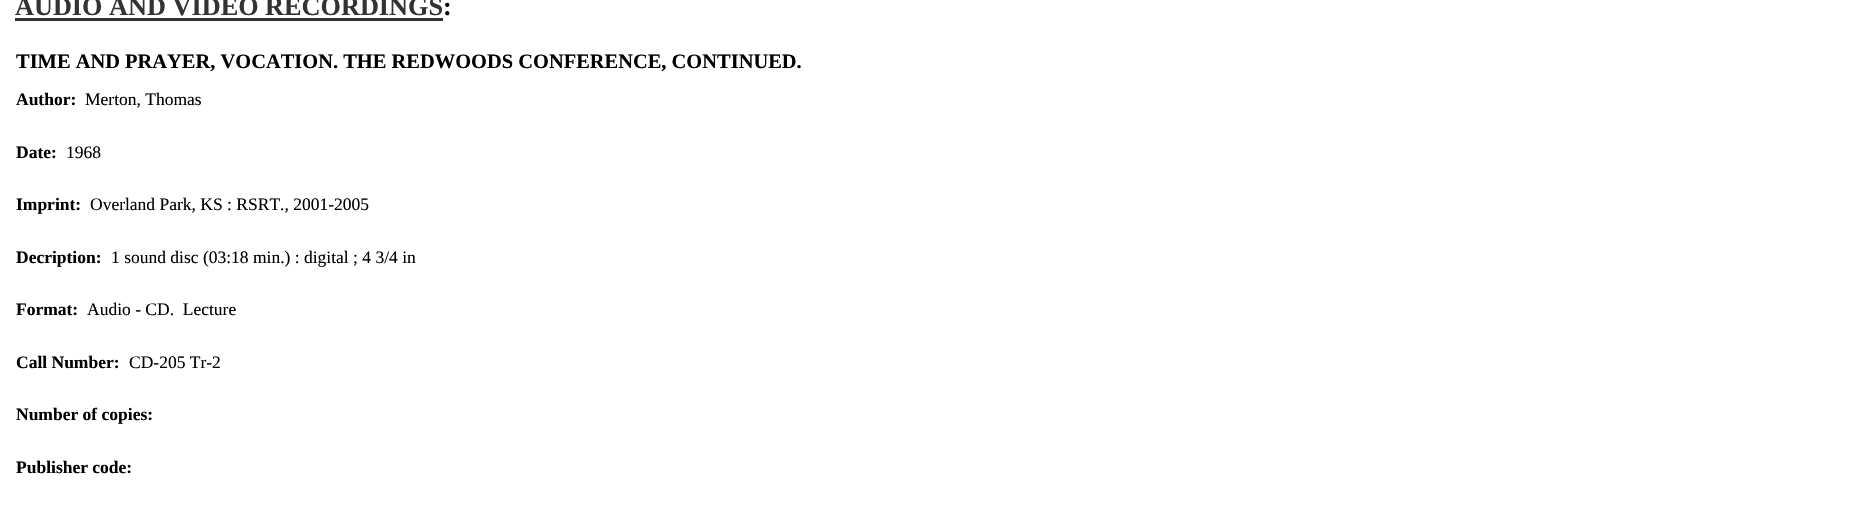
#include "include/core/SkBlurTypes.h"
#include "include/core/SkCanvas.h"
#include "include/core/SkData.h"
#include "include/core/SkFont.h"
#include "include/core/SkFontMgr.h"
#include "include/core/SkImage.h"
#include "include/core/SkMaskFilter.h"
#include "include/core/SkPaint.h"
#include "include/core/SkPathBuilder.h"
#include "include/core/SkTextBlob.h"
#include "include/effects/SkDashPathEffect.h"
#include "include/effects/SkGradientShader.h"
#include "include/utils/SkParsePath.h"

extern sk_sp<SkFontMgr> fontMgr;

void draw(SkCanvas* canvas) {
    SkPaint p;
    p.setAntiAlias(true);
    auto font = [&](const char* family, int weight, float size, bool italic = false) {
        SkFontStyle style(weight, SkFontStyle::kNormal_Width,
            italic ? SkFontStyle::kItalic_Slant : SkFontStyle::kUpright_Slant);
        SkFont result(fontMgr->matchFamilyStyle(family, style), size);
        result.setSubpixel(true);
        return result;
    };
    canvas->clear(0xFFFFFFFF);
    auto font1 = font("Liberation Serif", 700, 26.25f);
    p.setColor(0xFF333333);
    canvas->drawString("AUDIO AND VIDEO RECORDINGS", 15, 15, font1, p);
    canvas->drawRect(SkRect::MakeLTRB(15, 18, 443, 21), p);
    p.setColor(0xFF000000);
    canvas->drawString(":", 443, 15, font1, p);
    auto font2 = font("Liberation Serif", 700, 20.45f);
    canvas->drawString("TIME AND PRAYER, VOCATION. THE REDWOODS CONFERENCE, CONTINUED.", 16, 68, font2, p);
    auto font3 = font("Liberation Serif", 700, 17.5f);
    canvas->drawString("Author:", 16, 105, font3, p);
    auto font4 = font("Liberation Serif", 400, 17.5f);
    canvas->drawString("Merton, Thomas", 85, 105, font4, p);
    canvas->drawString("Date:", 16, 158, font3, p);
    canvas->drawString("1968", 66, 158, font4, p);
    canvas->drawString("Imprint:", 16, 210, font3, p);
    canvas->drawString("Overland Park, KS : RSRT., 2001-2005", 90, 210, font4, p);
    canvas->drawString("Decription:", 16, 263, font3, p);
    canvas->drawString("1 sound disc (03:18 min.) : digital ; 4 3/4 in", 111, 263, font4, p);
    canvas->drawString("Format:", 16, 315, font3, p);
    canvas->drawString("Audio - CD.  Lecture", 87, 315, font4, p);
    canvas->drawString("Call Number:", 16, 368, font3, p);
    canvas->drawString("CD-205 Tr-2", 129, 368, font4, p);
    canvas->drawString("Number of copies:", 16, 420, font3, p);
    canvas->drawString("Publisher code:", 16, 473, font3, p);
}
